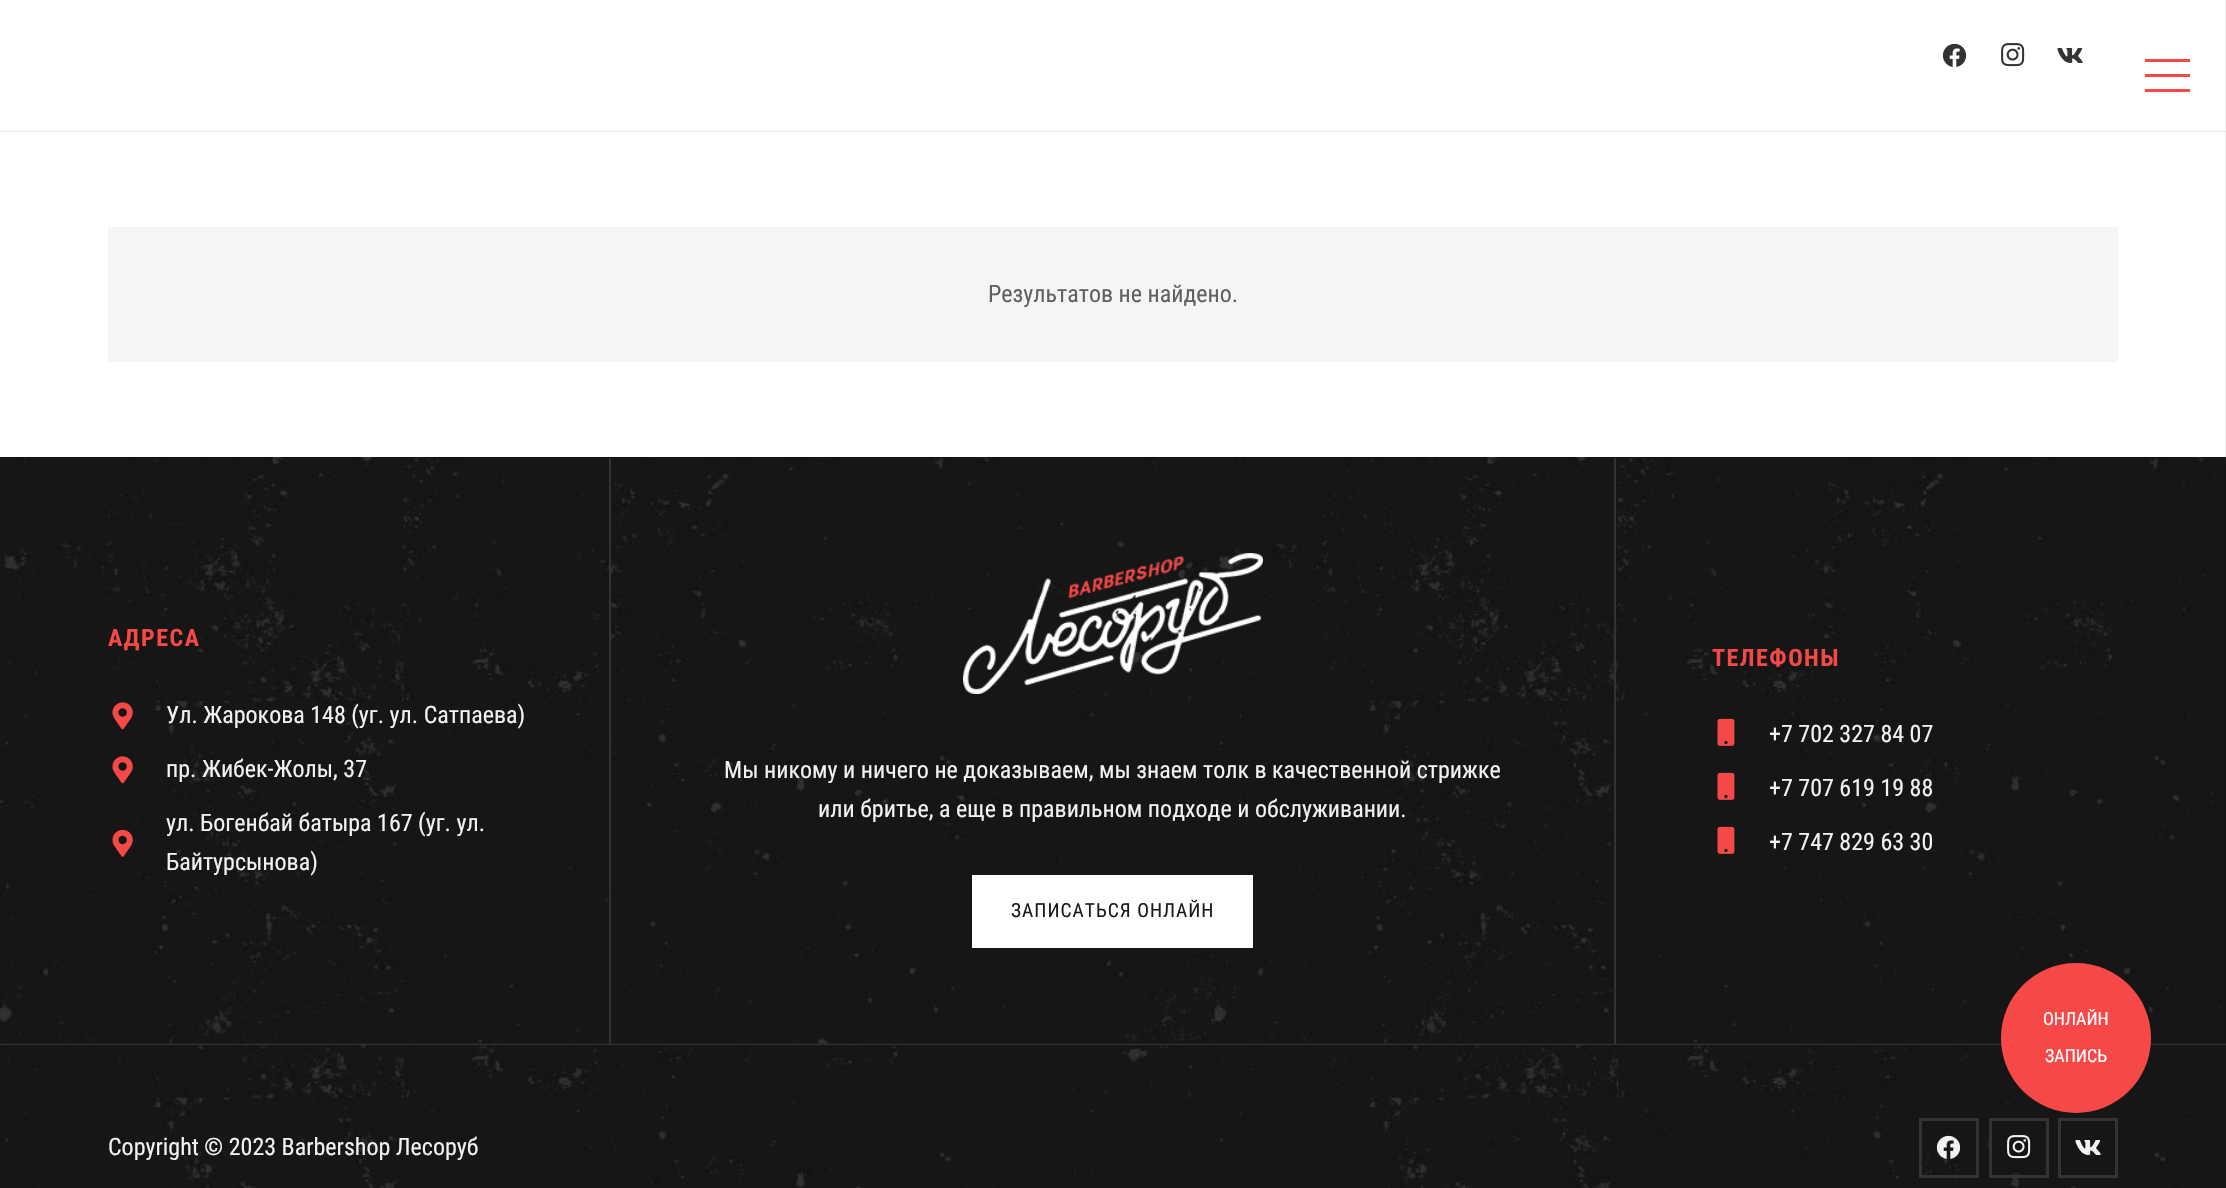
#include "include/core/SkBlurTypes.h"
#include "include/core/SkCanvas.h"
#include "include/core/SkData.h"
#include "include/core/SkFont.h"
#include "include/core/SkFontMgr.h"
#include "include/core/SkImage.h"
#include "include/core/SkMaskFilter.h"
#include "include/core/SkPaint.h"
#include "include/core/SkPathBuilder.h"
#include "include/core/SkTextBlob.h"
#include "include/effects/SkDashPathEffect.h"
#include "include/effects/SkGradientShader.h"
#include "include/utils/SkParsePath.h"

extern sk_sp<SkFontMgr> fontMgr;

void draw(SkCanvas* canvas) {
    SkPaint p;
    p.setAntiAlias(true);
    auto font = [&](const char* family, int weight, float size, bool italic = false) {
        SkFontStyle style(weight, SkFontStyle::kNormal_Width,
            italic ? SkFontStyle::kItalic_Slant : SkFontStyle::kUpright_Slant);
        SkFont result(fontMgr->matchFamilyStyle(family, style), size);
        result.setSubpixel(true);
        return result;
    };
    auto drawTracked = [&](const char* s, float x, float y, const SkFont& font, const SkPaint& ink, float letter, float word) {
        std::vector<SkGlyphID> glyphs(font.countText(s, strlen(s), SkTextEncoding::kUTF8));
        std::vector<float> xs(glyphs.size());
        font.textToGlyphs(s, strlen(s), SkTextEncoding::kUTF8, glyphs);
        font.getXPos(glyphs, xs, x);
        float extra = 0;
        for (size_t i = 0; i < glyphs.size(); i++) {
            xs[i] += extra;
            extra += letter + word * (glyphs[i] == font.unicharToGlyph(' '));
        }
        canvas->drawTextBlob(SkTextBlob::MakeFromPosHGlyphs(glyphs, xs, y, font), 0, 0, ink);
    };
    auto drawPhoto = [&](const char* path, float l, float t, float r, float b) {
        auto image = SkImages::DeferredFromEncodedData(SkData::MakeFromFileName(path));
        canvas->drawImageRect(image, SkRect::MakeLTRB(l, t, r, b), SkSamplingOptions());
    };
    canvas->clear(0xFFFFFFFF);
    p.setColor(0xFFEBEBEB);
    canvas->drawRect(SkRect::MakeLTRB(0, 131, 2226, 132), p);
    drawPhoto("media/1.png", 1942, 43, 1967, 67);
    drawPhoto("media/2.png", 2001, 43, 2025, 67);
    drawPhoto("media/3.png", 2057, 48, 2083, 63);
    {
        const struct { float l, t, r, b; SkColor color; } items[] = {
            {2145, 74, 2190, 77, 0xFFF74848},
            {2145, 59, 2190, 62, 0xFFF74848},
            {2145, 89, 2190, 92, 0xFFF74848},
            {0, 1043, 2226, 1044, 0xFF222222},
        };
        for (auto [l, t, r, b, color] : items) {
            p.setColor(color);
            canvas->drawRect(SkRect::MakeLTRB(l, t, r, b), p);
        }
    }
    drawPhoto("media/4.png", 0, 457, 2226, 1044);
    {
        const struct { float l, t, r, b; SkColor color; } items[] = {
            {0, 1044, 2226, 1045, 0xFF333333},
            {2225, 0, 2226, 1045, 0x14000000},
            {108, 227, 2118, 362, 0xFFF5F5F5},
        };
        for (auto [l, t, r, b, color] : items) {
            p.setColor(color);
            canvas->drawRect(SkRect::MakeLTRB(l, t, r, b), p);
        }
    }
    auto font1 = font("Roboto Condensed", 400, 24);
    p.setColor(0xFF616161);
    canvas->drawString("Результатов не найдено.", 988, 302, font1, p);
    p.setColor(0xFF333333);
    canvas->drawRect(SkRect::MakeLTRB(609, 458, 611, 1044), p);
    auto font2 = font("Roboto Condensed", 700, 24);
    p.setColor(0xFFF74848);
    drawTracked("АДРЕСА", 108, 646, font2, p, 1.5f, 0);
    drawPhoto("media/5.png", 112, 702, 133, 730);
    p.setColor(0xFFF2F2F2);
    canvas->drawString("Ул. Жарокова 148 (уг. ул. Сатпаева)", 166, 723, font1, p);
    drawPhoto("media/6.png", 112, 756, 133, 784);
    canvas->drawString("пр. Жибек-Жолы, 37", 166, 777, font1, p);
    drawPhoto("media/7.png", 112, 829, 133, 857);
    canvas->drawString("ул. Богенбай батыра 167 (уг. ул.", 166, 831, font1, p);
    canvas->drawString("Байтурсынова)", 166, 870, font1, p);
    p.setColor(0xFF333333);
    canvas->drawRect(SkRect::MakeLTRB(1614, 458, 1616, 1044), p);
    drawPhoto("media/8.png", 963, 553, 1263, 694);
    p.setColor(0xFFF2F2F2);
    canvas->drawString("Мы никому и ничего не доказываем, мы знаем толк в качественной стрижке", 724, 778, font1, p);
    canvas->drawString("или бритье, а еще в правильном подходе и обслуживании.", 818, 817, font1, p);
    p.setColor(0xFFFFFFFF);
    canvas->drawRect(SkRect::MakeLTRB(972, 875, 1253, 948), p);
    auto font3 = font("Roboto Condensed", 400, 19.5f);
    p.setColor(0xFF1A1A1A);
    drawTracked("ЗАПИСАТЬСЯ ОНЛАЙН", 1011, 917, font3, p, 1, 0);
    p.setColor(0xFFF74848);
    drawTracked("ТЕЛЕФОНЫ", 1712, 666, font2, p, 1.5f, 0);
    drawPhoto("media/9.png", 1717, 718, 1735, 746);
    p.setColor(0xFFF2F2F2);
    canvas->drawString("+7 702 327 84 07", 1769, 742, font1, p);
    drawPhoto("media/9.png", 1717, 772, 1735, 800);
    canvas->drawString("+7 707 619 19 88", 1769, 796, font1, p);
    drawPhoto("media/9.png", 1717, 826, 1735, 854);
    canvas->drawString("+7 747 829 63 30", 1769, 850, font1, p);
    drawPhoto("media/10.png", 0, 1045, 2226, 1188);
    canvas->drawString("Copyright © 2023 Barbershop Лесоруб", 108, 1155, font1, p);
    p.setStyle(SkPaint::kStroke_Style);
    p.setStrokeWidth(3);
    p.setColor(0xFF333333);
    canvas->drawRect(SkRect::MakeLTRB(1920.5f, 1119.5f, 1977.5f, 1176.5f), p);
    drawPhoto("media/11.png", 1936, 1135, 1961, 1159);
    canvas->drawRect(SkRect::MakeLTRB(1990.5f, 1119.5f, 2047.5f, 1176.5f), p);
    drawPhoto("media/12.png", 2007, 1135, 2031, 1159);
    canvas->drawRect(SkRect::MakeLTRB(2059.5f, 1119.5f, 2116.5f, 1176.5f), p);
    drawPhoto("media/13.png", 2075, 1140, 2101, 1155);
    p.setStyle(SkPaint::kFill_Style);
    p.setColor(0xFFF74848);
    canvas->drawCircle(2076, 1038, 75, p);
    auto font4 = font("Roboto Condensed", 400, 18);
    p.setColor(0xFFFFFFFF);
    canvas->drawString("ОНЛАЙН", 2043, 1025, font4, p);
    canvas->drawString("ЗАПИСЬ", 2045, 1062, font4, p);
}
